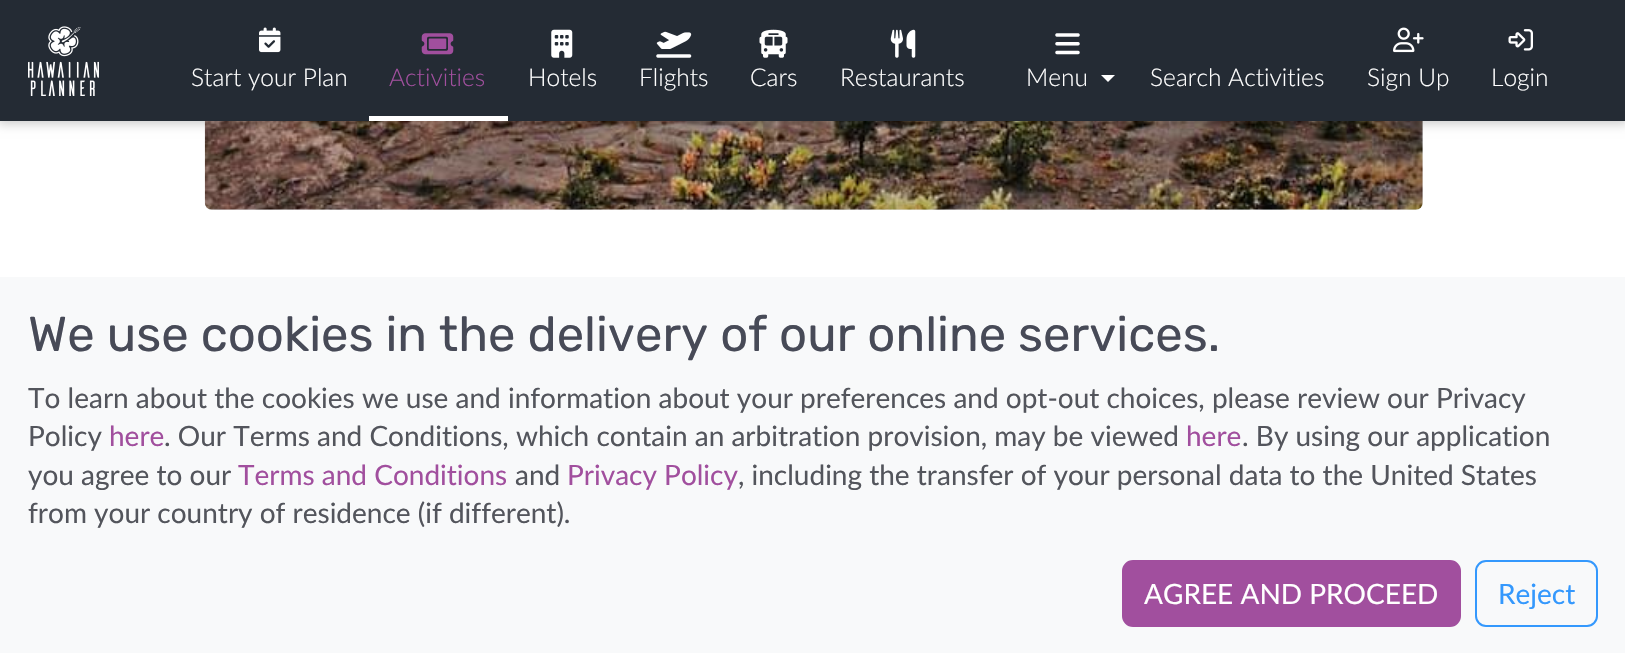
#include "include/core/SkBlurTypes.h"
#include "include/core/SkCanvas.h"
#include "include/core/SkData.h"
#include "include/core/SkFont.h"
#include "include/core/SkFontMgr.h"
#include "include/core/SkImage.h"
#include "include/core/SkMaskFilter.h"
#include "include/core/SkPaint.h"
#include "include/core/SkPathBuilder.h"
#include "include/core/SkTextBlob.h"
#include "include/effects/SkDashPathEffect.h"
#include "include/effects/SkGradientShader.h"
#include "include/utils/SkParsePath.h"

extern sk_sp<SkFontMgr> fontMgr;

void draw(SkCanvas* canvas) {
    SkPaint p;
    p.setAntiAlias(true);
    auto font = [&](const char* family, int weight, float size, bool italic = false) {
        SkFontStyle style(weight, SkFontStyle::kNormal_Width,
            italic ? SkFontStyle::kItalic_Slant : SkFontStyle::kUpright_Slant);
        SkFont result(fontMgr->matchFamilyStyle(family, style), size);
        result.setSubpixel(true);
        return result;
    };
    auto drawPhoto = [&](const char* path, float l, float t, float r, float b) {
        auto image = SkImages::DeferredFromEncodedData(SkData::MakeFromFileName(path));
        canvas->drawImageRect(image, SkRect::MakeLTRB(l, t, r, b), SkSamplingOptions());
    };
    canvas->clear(0xFFFFFFFF);
    p.setColor(0xFFEFF2F5);
    canvas->drawRoundRect(SkRect::MakeLTRB(205, -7, 1423, 210), 7, 7, p);
    drawPhoto("media/1.png", 204, 121, 1423, 210);
    p.setColor(0x33000000);
    p.setMaskFilter(SkMaskFilter::MakeBlur(kNormal_SkBlurStyle, 5));
    canvas->drawRect(SkRect::MakeLTRB(-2, 0, 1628, 124), p);
    p.setMaskFilter(nullptr);
    p.setColor(0xFF242B34);
    canvas->drawRect(SkRect::MakeLTRB(0, 0, 1625, 121), p);
    drawPhoto("media/2.png", 28, 26, 99, 96);
    drawPhoto("media/3.png", 259, 27, 281, 53);
    auto font1 = font("Lato", 300, 24.5f);
    p.setColor(0xFFFFFFFF);
    canvas->drawString("Start your Plan", 191, 86, font1, p);
    canvas->drawRect(SkRect::MakeLTRB(369, 116, 508, 121), p);
    drawPhoto("media/4.png", 421, 33, 454, 55);
    p.setColor(0xFFA14F9E);
    canvas->drawString("Activities", 389, 86, font1, p);
    drawPhoto("media/5.png", 551, 29, 573, 58);
    p.setColor(0xFFFFFFFF);
    canvas->drawString("Hotels", 528, 86, font1, p);
    drawPhoto("media/6.png", 656, 31, 692, 58);
    canvas->drawString("Flights", 639, 86, font1, p);
    drawPhoto("media/7.png", 759, 29, 788, 58);
    canvas->drawString("Cars", 750, 86, font1, p);
    drawPhoto("media/8.png", 890, 29, 916, 58);
    canvas->drawString("Restaurants", 840, 86, font1, p);
    drawPhoto("media/9.png", 1055, 33, 1080, 55);
    canvas->drawString("Menu", 1026, 86, font1, p);
    canvas->drawPath(SkPathBuilder().moveTo(1101, 75).lineTo(1115, 75).lineTo(1108, 82).close().detach(), p);
    canvas->drawString("Search Activities", 1150, 86, font1, p);
    drawPhoto("media/10.png", 1393, 27, 1424, 53);
    canvas->drawString("Sign Up", 1367, 86, font1, p);
    drawPhoto("media/11.png", 1508, 29, 1533, 51);
    canvas->drawString("Login", 1491, 86, font1, p);
    p.setColor(0xFFF8F9FA);
    canvas->drawRect(SkRect::MakeLTRB(0, 277, 1625, 653), p);
    auto font2 = font("Rubik", 400, 49);
    p.setColor(0xFF474A57);
    canvas->drawString("We use cookies in the delivery of our online services.", 28, 351, font2, p);
    auto font3 = font("Lato", 400, 28);
    p.setColor(0xFF53555C);
    canvas->drawString("To learn about the cookies we use and information about your preferences and opt-out choices, please review our Privacy", 28, 408, font3, p);
    canvas->drawString("Policy", 28, 446, font3, p);
    p.setColor(0xFFA14F9E);
    canvas->drawString("here", 109, 446, font3, p);
    p.setColor(0xFF53555C);
    canvas->drawString(". Our Terms and Conditions, which contain an arbitration provision, may be viewed", 164, 446, font3, p);
    p.setColor(0xFFA14F9E);
    canvas->drawString("here", 1186, 446, font3, p);
    p.setColor(0xFF53555C);
    canvas->drawString(". By using our application", 1242, 446, font3, p);
    canvas->drawString("you agree to our", 28, 485, font3, p);
    p.setColor(0xFFA14F9E);
    canvas->drawString("Terms and Conditions", 238, 485, font3, p);
    p.setColor(0xFF53555C);
    canvas->drawString("and", 515, 485, font3, p);
    p.setColor(0xFFA14F9E);
    canvas->drawString("Privacy Policy", 567, 485, font3, p);
    p.setColor(0xFF53555C);
    canvas->drawString(", including the transfer of your personal data to the United States", 738, 485, font3, p);
    canvas->drawString("from your country of residence (if different).", 28, 523, font3, p);
    p.setColor(0xFFA14F9E);
    canvas->drawRoundRect(SkRect::MakeLTRB(1123, 561, 1460, 626), 10, 10, p);
    p.setStyle(SkPaint::kStroke_Style);
    p.setStrokeWidth(2);
    canvas->drawRoundRect(SkRect::MakeLTRB(1123, 561, 1460, 626), 10, 10, p);
    p.setStyle(SkPaint::kFill_Style);
    p.setColor(0xFFFFFFFF);
    canvas->drawString("AGREE AND PROCEED", 1144, 604, font3, p);
    p.setStyle(SkPaint::kStroke_Style);
    p.setColor(0xFF3498FD);
    canvas->drawRoundRect(SkRect::MakeLTRB(1476, 561, 1597, 626), 10, 10, p);
    p.setStyle(SkPaint::kFill_Style);
    canvas->drawString("Reject", 1498, 604, font3, p);
}
